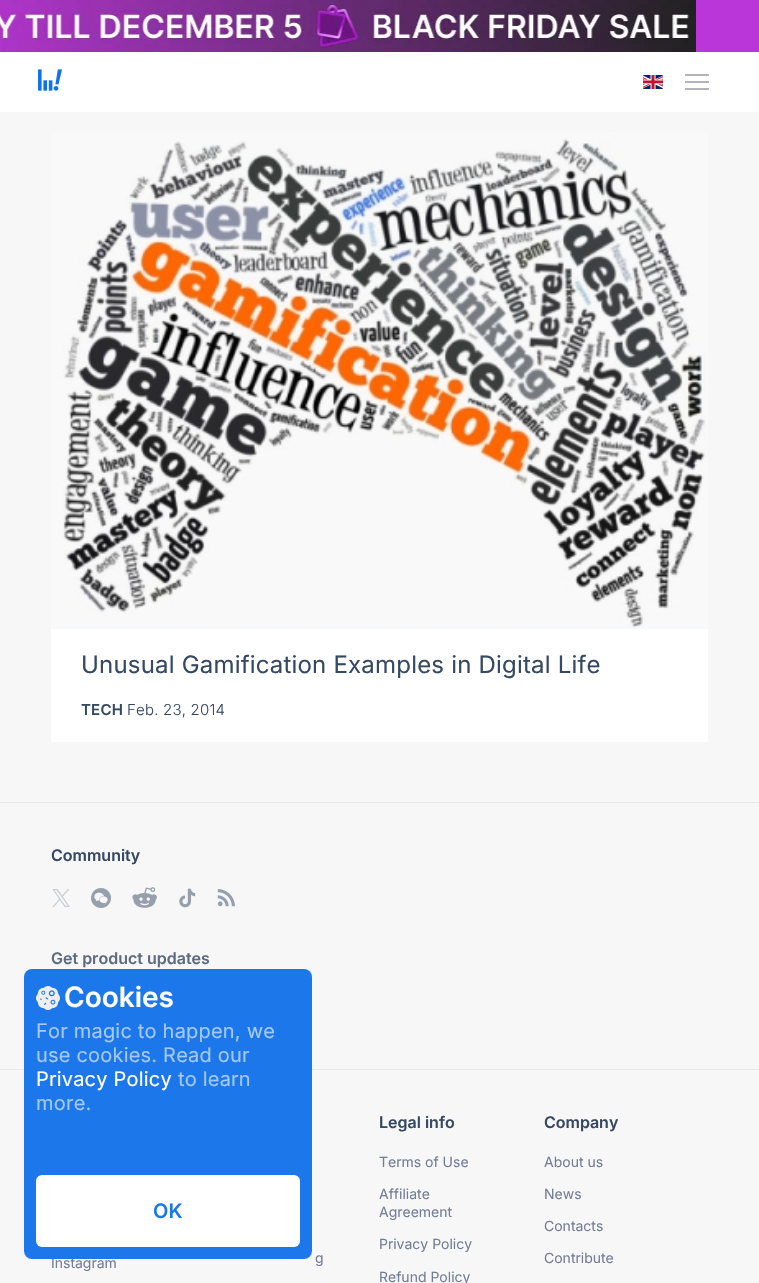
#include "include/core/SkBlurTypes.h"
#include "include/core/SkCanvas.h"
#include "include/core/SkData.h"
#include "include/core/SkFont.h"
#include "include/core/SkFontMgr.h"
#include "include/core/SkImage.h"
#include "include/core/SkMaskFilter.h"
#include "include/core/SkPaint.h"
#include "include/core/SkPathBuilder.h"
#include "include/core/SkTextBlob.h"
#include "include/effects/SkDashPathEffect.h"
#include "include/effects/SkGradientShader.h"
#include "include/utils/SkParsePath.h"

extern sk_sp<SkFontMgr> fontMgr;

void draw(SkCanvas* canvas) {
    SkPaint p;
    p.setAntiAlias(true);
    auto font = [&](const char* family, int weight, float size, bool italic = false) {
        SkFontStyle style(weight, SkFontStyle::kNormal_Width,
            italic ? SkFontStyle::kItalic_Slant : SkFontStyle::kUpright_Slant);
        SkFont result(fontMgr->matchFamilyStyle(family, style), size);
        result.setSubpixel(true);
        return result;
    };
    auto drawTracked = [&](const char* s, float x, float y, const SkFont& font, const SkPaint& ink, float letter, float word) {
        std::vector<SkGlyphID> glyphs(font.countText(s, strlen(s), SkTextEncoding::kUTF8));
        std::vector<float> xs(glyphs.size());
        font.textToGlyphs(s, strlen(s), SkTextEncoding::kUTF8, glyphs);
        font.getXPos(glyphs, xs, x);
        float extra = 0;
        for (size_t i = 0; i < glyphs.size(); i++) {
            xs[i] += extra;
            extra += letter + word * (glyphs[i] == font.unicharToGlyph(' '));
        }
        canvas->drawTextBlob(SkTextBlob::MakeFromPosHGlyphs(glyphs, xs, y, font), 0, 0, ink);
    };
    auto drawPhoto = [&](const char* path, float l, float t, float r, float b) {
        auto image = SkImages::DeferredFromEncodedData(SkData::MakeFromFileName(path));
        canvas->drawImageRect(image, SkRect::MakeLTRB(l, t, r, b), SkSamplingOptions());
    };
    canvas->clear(0xFFF7F7F7);
    p.setColor(0xFFFFFFFF);
    canvas->drawRect(SkRect::MakeLTRB(0, 52, 759, 112), p);
    p.setColor(0xFFBB36D9);
    canvas->drawRect(SkRect::MakeLTRB(696, 0, 759, 52), p);
    drawPhoto("media/1.png", 0, 0, 696, 52);
    drawPhoto("media/2.png", 38, 69, 62, 91);
    drawPhoto("media/3.png", 643, 75, 663, 89);
    {
        const struct { float l, t, r, b; SkColor color; } items[] = {
            {685, 74, 709, 76, 0xFFB3B3BD},
            {685, 81, 709, 83, 0xFFB3B3BD},
            {685, 88, 709, 90, 0xFFB3B3BD},
            {51, 629, 708, 742, 0xFFFFFFFF},
        };
        for (auto [l, t, r, b, color] : items) {
            p.setColor(color);
            canvas->drawRect(SkRect::MakeLTRB(l, t, r, b), p);
        }
    }
    drawPhoto("media/4.png", 51, 132, 708, 629);
    auto font1 = font("Inter", 400, 24);
    p.setColor(0xFF364962);
    drawTracked("Unusual Gamification Examples in Digital Life", 81, 673, font1, p, 0.2f, 0);
    auto font2 = font("Inter", 600, 15);
    drawTracked("TECH", 81, 715, font2, p, 0.2f, 0);
    auto font3 = font("Inter", 300, 15);
    drawTracked("Feb. 23, 2014", 127, 715, font3, p, 0.2f, 0);
    p.setColor(0xFFE8E8E8);
    canvas->drawRect(SkRect::MakeLTRB(0, 802, 759, 803), p);
    canvas->drawRect(SkRect::MakeLTRB(0, 1069, 759, 1070), p);
    auto font4 = font("Inter", 600, 16);
    p.setColor(0xFF364962);
    canvas->drawString("Community", 51, 861, font4, p);
    drawPhoto("media/5.png", 52, 889, 70, 907);
    drawPhoto("media/6.png", 91, 888, 111, 908);
    drawPhoto("media/7.png", 132, 887, 157, 908);
    drawPhoto("media/8.png", 179, 888, 196, 908);
    drawPhoto("media/9.png", 217, 889, 235, 907);
    p.setColor(0xFF5D6C80);
    canvas->drawString("Get product updates", 51, 964, font4, p);
    auto font5 = font("Inter", 400, 14);
    p.setColor(0xFF737E97);
    canvas->drawString("Instagram", 51, 1268, font5, p);
    canvas->drawString("g", 315, 1263, font5, p);
    p.setColor(0xFF364962);
    canvas->drawString("Legal info", 379, 1128, font4, p);
    p.setColor(0xFF737E97);
    {
        const struct { const char* s; float x, y; } items[] = {
            {"Terms of Use", 379, 1167},
            {"Affiliate", 379, 1199},
            {"Agreement", 379, 1217},
            {"Privacy Policy", 379, 1249},
            {"Refund Policy", 379, 1282},
        };
        for (auto [s, x, y] : items) {
            canvas->drawString(s, x, y, font5, p);
        }
    }
    p.setColor(0xFF364962);
    canvas->drawString("Company", 544, 1128, font4, p);
    p.setColor(0xFF737E97);
    {
        const struct { const char* s; float x, y; } items[] = {
            {"About us", 544, 1167},
            {"News", 544, 1199},
            {"Contacts", 544, 1231},
            {"Contribute", 544, 1263},
        };
        for (auto [s, x, y] : items) {
            canvas->drawString(s, x, y, font5, p);
        }
    }
    p.setColor(0xFF1C77EB);
    canvas->drawRoundRect(SkRect::MakeLTRB(24, 969, 312, 1259), 8, 8, p);
    drawPhoto("media/10.png", 36, 986, 60, 1010);
    auto font6 = font("Inter", 600, 28);
    p.setColor(0xFFFFFFFF);
    canvas->drawString("Cookies", 64, 1007, font6, p);
    auto font7 = font("Inter", 400, 20);
    p.setColor(0xFFA4C9F7);
    drawTracked("For magic to happen, we", 36, 1038, font7, p, 0.2f, 0);
    drawTracked("use cookies. Read our", 36, 1062, font7, p, 0.2f, 0);
    p.setColor(0xFFFFFFFF);
    drawTracked("Privacy Policy", 36, 1086, font7, p, 0.2f, 0);
    p.setColor(0xFFA4C9F7);
    drawTracked("to learn", 178, 1086, font7, p, 0.2f, 0);
    drawTracked("more.", 36, 1110, font7, p, 0.2f, 0);
    p.setColor(0xFFFFFFFF);
    canvas->drawRoundRect(SkRect::MakeLTRB(36, 1175, 300, 1247), 6, 6, p);
    auto font8 = font("Inter", 600, 20);
    p.setColor(0xFF1C77EB);
    drawTracked("OK", 153, 1218, font8, p, 0.2f, 0);
}
